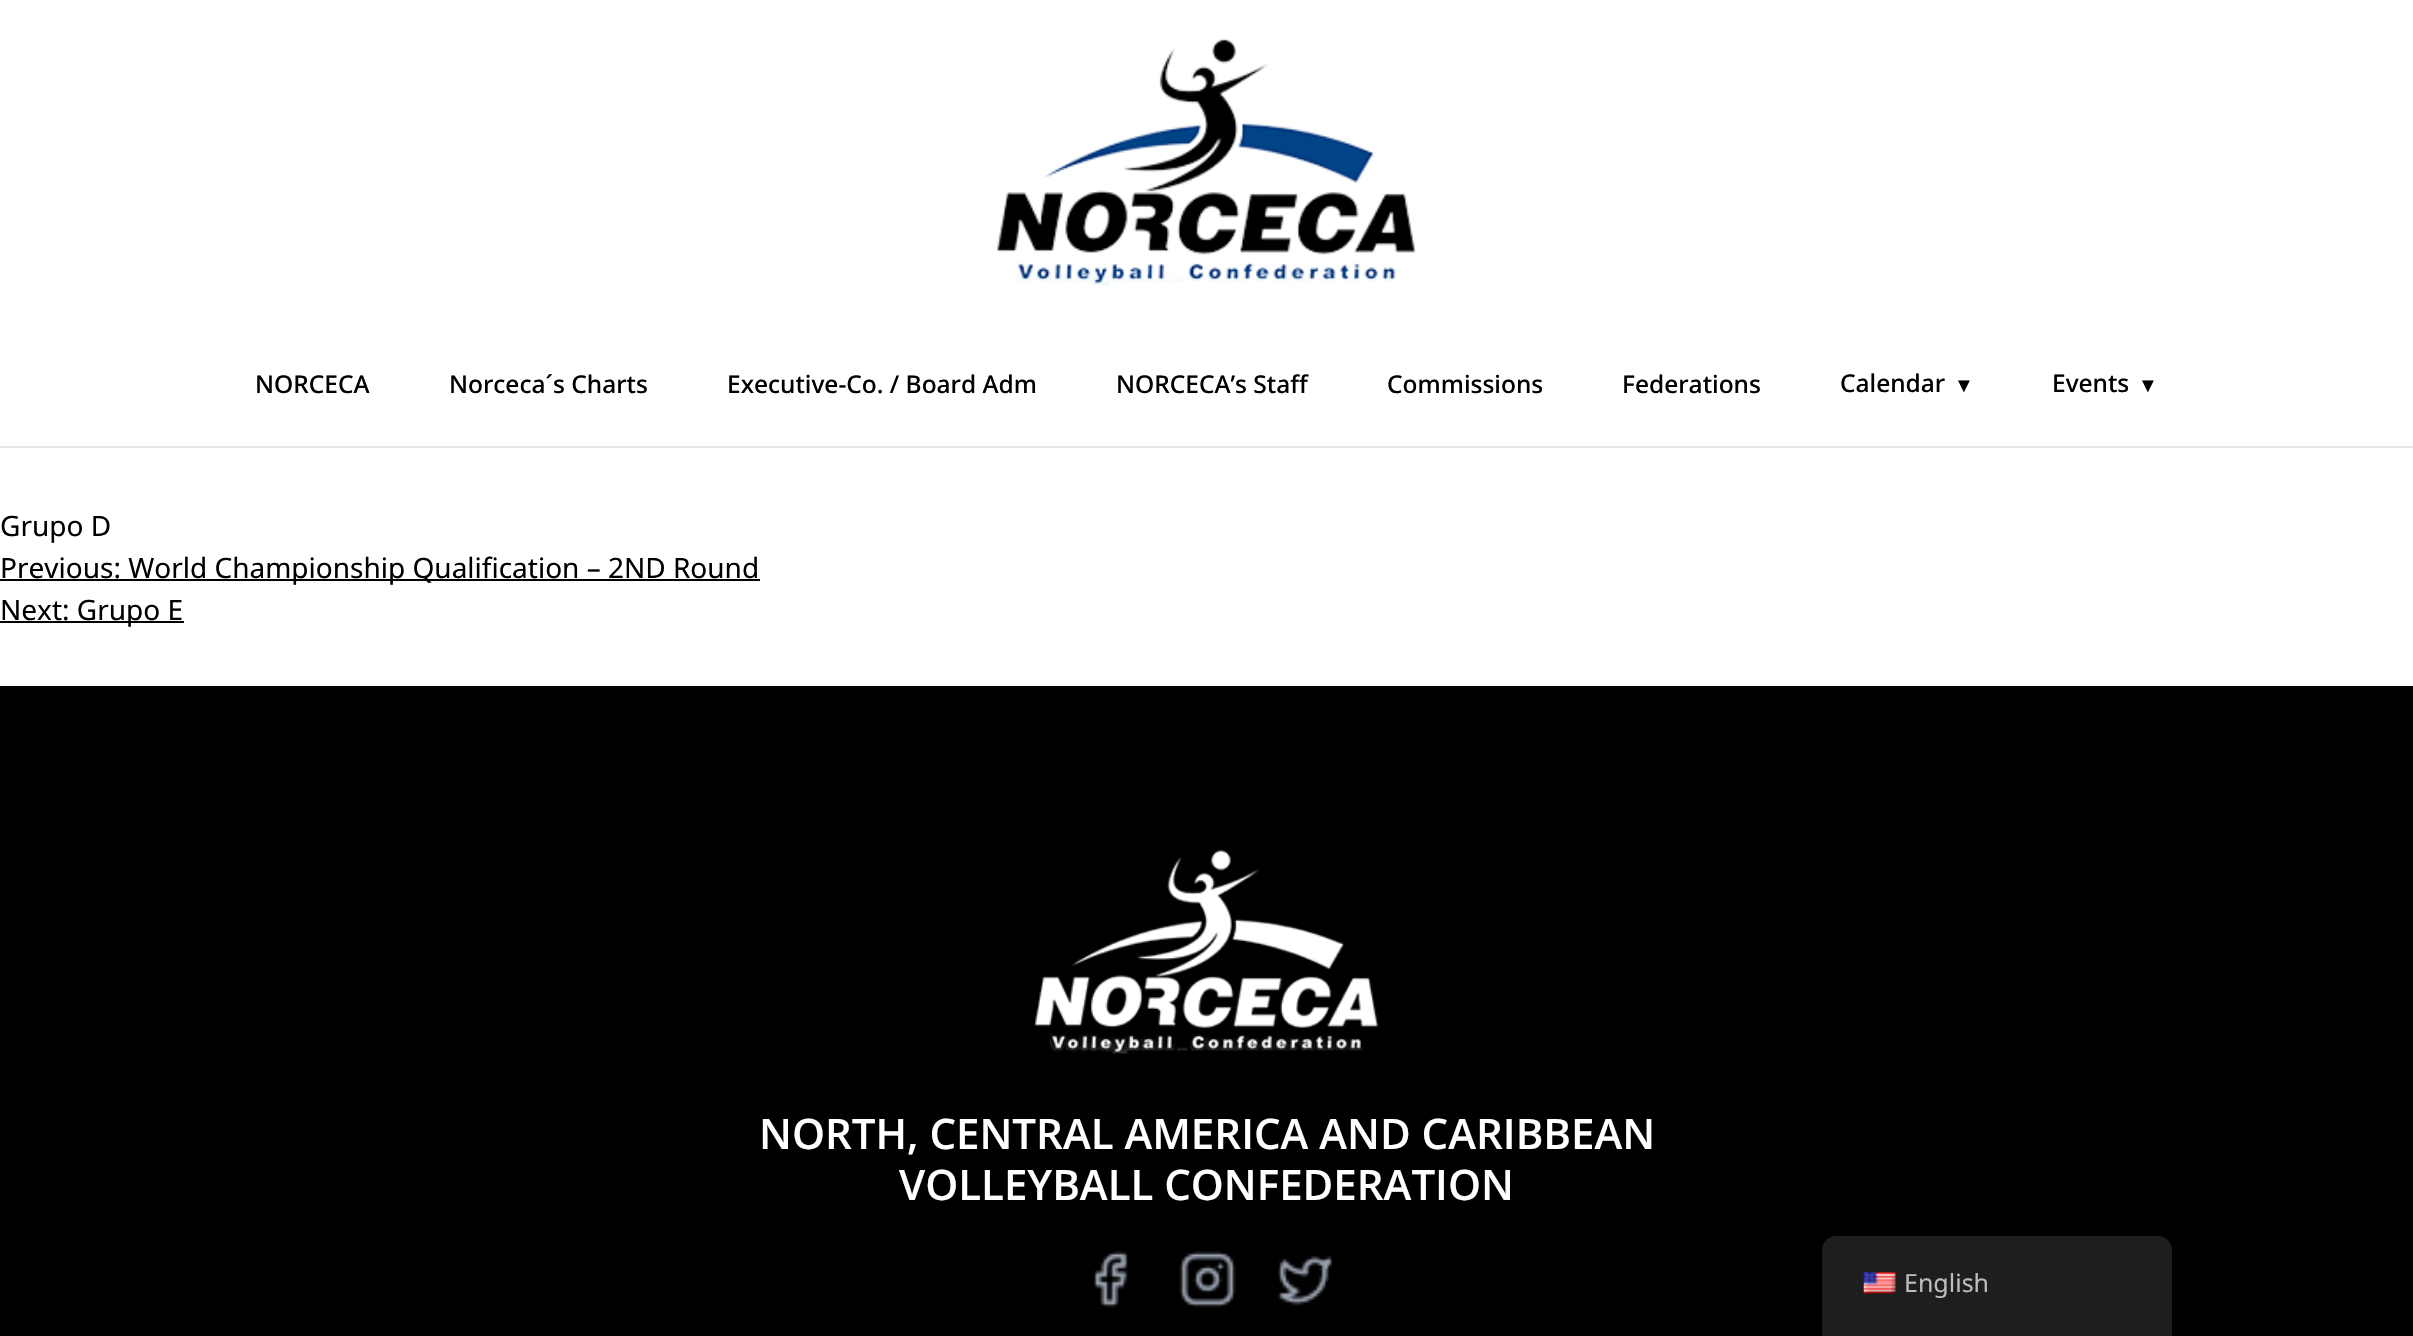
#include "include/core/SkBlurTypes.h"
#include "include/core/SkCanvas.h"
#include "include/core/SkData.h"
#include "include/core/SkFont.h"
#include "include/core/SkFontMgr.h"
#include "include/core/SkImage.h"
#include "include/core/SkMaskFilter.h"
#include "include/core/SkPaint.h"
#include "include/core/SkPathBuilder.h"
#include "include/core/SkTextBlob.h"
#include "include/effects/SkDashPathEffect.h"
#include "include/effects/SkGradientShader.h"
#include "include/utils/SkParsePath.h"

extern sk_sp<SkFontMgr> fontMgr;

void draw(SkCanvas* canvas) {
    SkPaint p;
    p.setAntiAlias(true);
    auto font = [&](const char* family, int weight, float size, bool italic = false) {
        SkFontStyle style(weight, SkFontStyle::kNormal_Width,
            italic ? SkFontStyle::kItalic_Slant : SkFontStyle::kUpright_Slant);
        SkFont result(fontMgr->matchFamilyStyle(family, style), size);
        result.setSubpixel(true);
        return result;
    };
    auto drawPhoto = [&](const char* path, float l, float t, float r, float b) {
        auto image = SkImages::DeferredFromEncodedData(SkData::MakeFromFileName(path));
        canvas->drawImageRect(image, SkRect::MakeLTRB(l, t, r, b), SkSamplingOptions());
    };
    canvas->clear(0xFFFFFFFF);
    drawPhoto("media/1.png", 997, 38, 1417, 286);
    p.setColor(0xFFE6E6E6);
    canvas->drawRect(SkRect::MakeLTRB(0, 446, 2413, 448), p);
    auto font1 = font("Noto Sans", 500, 24.5f);
    p.setColor(0xFF000000);
    {
        const struct { const char* s; float x, y; } items[] = {
            {"NORCECA", 255, 393},
            {"Norceca´s Charts", 449, 393},
            {"Executive-Co. / Board Adm", 727, 393},
            {"NORCECA’s Staff", 1116, 393},
            {"Commissions", 1387, 393},
            {"Federations", 1622, 393},
            {"Calendar", 1840, 392},
        };
        for (auto [s, x, y] : items) {
            canvas->drawString(s, x, y, font1, p);
        }
    }
    auto font2 = font("Liberation Sans", 400, 20);
    canvas->drawString("▼", 1954, 392, font2, p);
    canvas->drawString("Events", 2052, 392, font1, p);
    canvas->drawString("▼", 2138, 392, font2, p);
    auto font3 = font("Noto Sans", 400, 28);
    canvas->drawString("Grupo D", 0, 536, font3, p);
    canvas->drawRect(SkRect::MakeLTRB(0, 579, 760, 581), p);
    canvas->drawString("Previous: World Championship Qualification – 2ND Round", 0, 578, font3, p);
    canvas->drawRect(SkRect::MakeLTRB(0, 621, 184, 623), p);
    canvas->drawString("Next: Grupo E", 0, 620, font3, p);
    canvas->drawRect(SkRect::MakeLTRB(0, 686, 2413, 1336), p);
    drawPhoto("media/2.png", 1034, 849, 1379, 1054);
    auto font4 = font("Open Sans", 600, 42);
    p.setColor(0xFFFFFFFF);
    canvas->drawString("NORTH, CENTRAL AMERICA AND CARIBBEAN", 759, 1149, font4, p);
    canvas->drawString("VOLLEYBALL CONFEDERATION", 899, 1200, font4, p);
    drawPhoto("media/3.png", 1094, 1251, 1128, 1308);
    drawPhoto("media/4.png", 1179, 1251, 1236, 1308);
    drawPhoto("media/5.png", 1277, 1256, 1334, 1306);
    p.setColor(0xFF1E1E1E);
    canvas->drawPath(SkPathBuilder().moveTo(1836, 1236).lineTo(2158, 1236).cubicTo(2165.5f, 1236, 2172, 1242.5f, 2172, 1250).lineTo(2172, 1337).lineTo(1822, 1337).lineTo(1822, 1250).cubicTo(1822, 1242.5f, 1828.5f, 1236, 1836, 1236).close().detach(), p);
    drawPhoto("media/6.png", 1863, 1271, 1896, 1294);
    auto font5 = font("Noto Sans", 400, 25);
    p.setColor(0xFFBDBDBD);
    canvas->drawString("English", 1904, 1292, font5, p);
}
